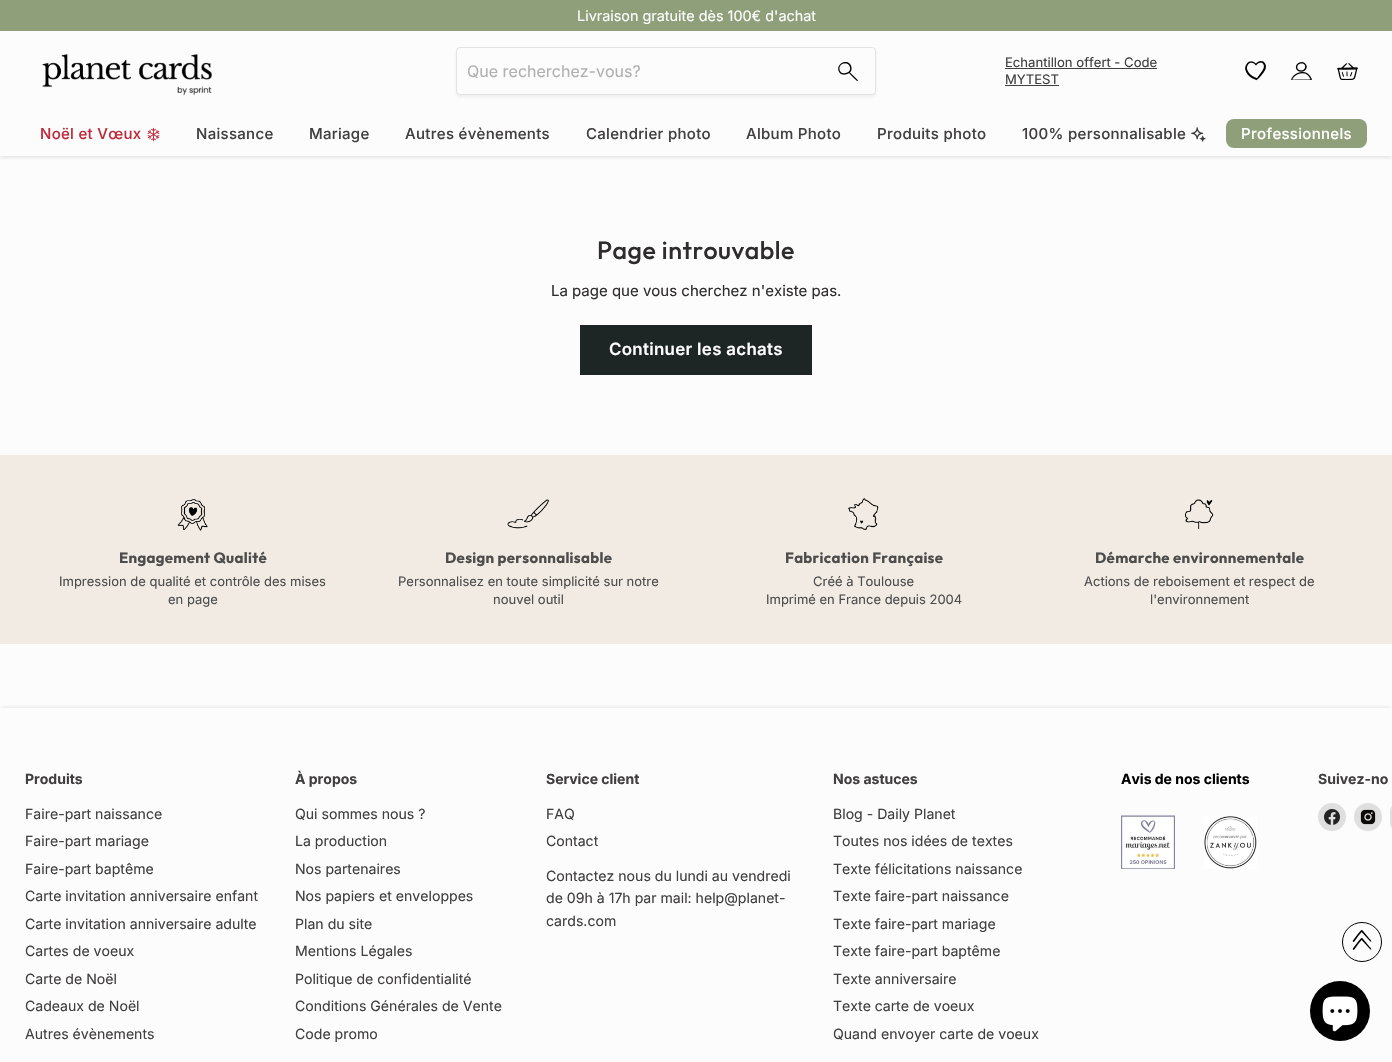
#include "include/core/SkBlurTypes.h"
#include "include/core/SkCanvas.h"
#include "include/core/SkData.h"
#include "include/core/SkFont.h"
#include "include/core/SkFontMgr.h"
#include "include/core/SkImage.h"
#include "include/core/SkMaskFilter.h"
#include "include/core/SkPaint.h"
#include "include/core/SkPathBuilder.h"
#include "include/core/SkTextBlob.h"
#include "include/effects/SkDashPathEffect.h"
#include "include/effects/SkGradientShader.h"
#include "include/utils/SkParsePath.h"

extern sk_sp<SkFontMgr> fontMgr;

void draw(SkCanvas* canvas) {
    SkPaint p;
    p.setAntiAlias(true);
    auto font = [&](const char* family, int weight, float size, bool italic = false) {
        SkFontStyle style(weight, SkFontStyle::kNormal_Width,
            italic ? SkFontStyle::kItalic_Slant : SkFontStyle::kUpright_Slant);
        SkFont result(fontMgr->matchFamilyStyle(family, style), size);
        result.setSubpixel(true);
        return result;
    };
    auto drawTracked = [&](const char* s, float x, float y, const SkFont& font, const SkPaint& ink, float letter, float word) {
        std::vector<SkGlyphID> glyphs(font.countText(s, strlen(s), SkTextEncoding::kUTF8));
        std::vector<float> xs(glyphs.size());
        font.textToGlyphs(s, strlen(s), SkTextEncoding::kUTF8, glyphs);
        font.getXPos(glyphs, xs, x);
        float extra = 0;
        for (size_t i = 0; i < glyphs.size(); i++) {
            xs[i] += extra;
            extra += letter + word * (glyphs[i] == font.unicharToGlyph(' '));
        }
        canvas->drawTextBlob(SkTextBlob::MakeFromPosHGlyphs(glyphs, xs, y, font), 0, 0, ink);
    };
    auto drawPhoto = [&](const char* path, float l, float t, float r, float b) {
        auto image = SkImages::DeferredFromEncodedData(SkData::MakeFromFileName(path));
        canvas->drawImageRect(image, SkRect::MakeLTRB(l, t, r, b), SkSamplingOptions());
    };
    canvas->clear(0xFFFCFCFC);
    canvas->save();
    canvas->clipRect(SkRect::MakeLTRB(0, 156, 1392, 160));
    p.setColor(0x407E7E7E);
    p.setMaskFilter(SkMaskFilter::MakeBlur(kNormal_SkBlurStyle, 2));
    canvas->drawRect(SkRect::MakeLTRB(0, 32, 1392, 157), p);
    p.setMaskFilter(nullptr);
    canvas->restore();
    p.setColor(0xFF8E9F79);
    canvas->drawRect(SkRect::MakeLTRB(0, 0, 1392, 31), p);
    auto font1 = font("Inter", 400, 14.4f);
    p.setColor(0xFFFFFFFF);
    canvas->drawString("Livraison gratuite dès 100€ d'achat", 577, 21, font1, p);
    drawPhoto("media/1.png", 42, 54, 212, 96);
    canvas->save();
    canvas->clipPath(SkPathBuilder(SkPathFillType::kEvenOdd).moveTo(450, 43).lineTo(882, 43).lineTo(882, 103).lineTo(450, 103).close().moveTo(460, 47).lineTo(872, 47).cubicTo(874, 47, 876, 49, 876, 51).lineTo(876, 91).cubicTo(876, 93, 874, 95, 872, 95).lineTo(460, 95).cubicTo(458, 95, 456, 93, 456, 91).lineTo(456, 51).cubicTo(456, 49, 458, 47, 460, 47).close().detach(), true);
    p.setColor(0x1C7E7E7E);
    p.setMaskFilter(SkMaskFilter::MakeBlur(kNormal_SkBlurStyle, 1.5f));
    canvas->drawRoundRect(SkRect::MakeLTRB(456, 49, 876, 97), 4, 4, p);
    p.setMaskFilter(nullptr);
    canvas->restore();
    p.setStyle(SkPaint::kStroke_Style);
    p.setStrokeWidth(1);
    p.setColor(0x337E7E7E);
    canvas->drawRoundRect(SkRect::MakeLTRB(456.5f, 47.5f, 875.5f, 94.5f), 3.5f, 3.5f, p);
    auto font2 = font("Inter", 400, 16);
    p.setStyle(SkPaint::kFill_Style);
    p.setColor(0xFFB1B0B0);
    canvas->drawString("Que recherchez-vous?", 467, 77, font2, p);
    p.setColor(0xFFFCFCFC);
    canvas->drawPath(SkPathBuilder().moveTo(821.5f, 48.5f).lineTo(872, 48.5f).cubicTo(873.5f, 48.5f, 874.5f, 49.5f, 874.5f, 51).lineTo(874.5f, 91).cubicTo(874.5f, 92.5f, 873.5f, 93.5f, 872, 93.5f).lineTo(821.5f, 93.5f).close().detach(), p);
    p.setStyle(SkPaint::kStroke_Style);
    canvas->drawPath(SkPathBuilder().moveTo(821.5f, 48.5f).lineTo(872, 48.5f).cubicTo(873.5f, 48.5f, 874.5f, 49.5f, 874.5f, 51).lineTo(874.5f, 91).cubicTo(874.5f, 92.5f, 873.5f, 93.5f, 872, 93.5f).lineTo(821.5f, 93.5f).close().detach(), p);
    drawPhoto("media/2.png", 838, 62, 858, 81);
    auto font3 = font("Inter", 400, 13.1f);
    p.setStyle(SkPaint::kFill_Style);
    p.setColor(0xFF413F3F);
    canvas->drawString("Echantillon offert - Code", 1005, 67, font3, p);
    canvas->drawRect(SkRect::MakeLTRB(1005, 68, 1157, 69), p);
    canvas->drawString("MYTEST", 1005, 84, font3, p);
    canvas->drawRect(SkRect::MakeLTRB(1005, 85, 1059, 86), p);
    drawPhoto("media/3.png", 1245, 61, 1266, 81);
    drawPhoto("media/4.png", 1291, 62, 1312, 80);
    drawPhoto("media/5.png", 1337, 63, 1358, 80);
    auto font4 = font("Inter", 500, 15);
    p.setColor(0xFFC1293B);
    drawTracked("Noël et Vœux", 40, 139, font4, p, 0.3f, 0);
    drawPhoto("media/6.png", 147, 127, 160, 142);
    p.setColor(0xFF413F3F);
    {
        const struct { const char* s; float x, y; } items[] = {
            {"Naissance", 196, 139},
            {"Mariage", 309, 139},
            {"Autres évènements", 405, 139},
            {"Calendrier photo", 586, 139},
            {"Album Photo", 746, 139},
            {"Produits photo", 877, 139},
            {"100% personnalisable", 1022, 139},
        };
        for (auto [s, x, y] : items) {
            drawTracked(s, x, y, font4, p, 0.3f, 0);
        }
    }
    drawPhoto("media/7.png", 1191, 127, 1206, 142);
    p.setColor(0xFF8E9F79);
    canvas->drawRoundRect(SkRect::MakeLTRB(1226, 119, 1367, 148), 8, 8, p);
    p.setColor(0xFFFFFFFF);
    drawTracked("Professionnels", 1241, 139, font4, p, 0.3f, 0);
    auto font5 = font("Outfit", 500, 25);
    p.setColor(0xFF2E2C2C);
    drawTracked("Page introuvable", 597, 259, font5, p, 0.5f, 0);
    auto font6 = font("Inter", 400, 15);
    canvas->drawString("La page que vous cherchez n'existe pas.", 551, 296, font6, p);
    p.setColor(0xFF1E2525);
    canvas->drawRect(SkRect::MakeLTRB(580, 325, 812, 375), p);
    auto font7 = font("Inter", 600, 16.9f);
    p.setColor(0xFFFFFFFF);
    drawTracked("Continuer les achats", 609, 355, font7, p, 0.3f, 0);
    p.setColor(0xFFF1EBE3);
    canvas->drawRect(SkRect::MakeLTRB(0, 455, 1392, 644), p);
    drawPhoto("media/8.png", 177, 499, 208, 531);
    auto font8 = font("Outfit", 700, 15);
    p.setColor(0xFF4D4D4D);
    drawTracked("Engagement Qualité", 119, 563, font8, p, 0.3f, 0);
    auto font9 = font("Inter", 400, 13);
    canvas->drawString("Impression de qualité et contrôle des mises", 59, 586, font9, p);
    canvas->drawString("en page", 168, 604, font9, p);
    drawPhoto("media/9.png", 507, 499, 549, 529);
    drawTracked("Design personnalisable", 445, 563, font8, p, 0.3f, 0);
    canvas->drawString("Personnalisez en toute simplicité sur notre", 398, 586, font9, p);
    canvas->drawString("nouvel outil", 493, 604, font9, p);
    drawPhoto("media/10.png", 848, 498, 879, 530);
    drawTracked("Fabrication Française", 785, 563, font8, p, 0.3f, 0);
    canvas->drawString("Créé à Toulouse", 813, 586, font9, p);
    canvas->drawString("Imprimé en France depuis 2004", 766, 604, font9, p);
    drawPhoto("media/11.png", 1185, 499, 1214, 529);
    drawTracked("Démarche environnementale", 1095, 563, font8, p, 0.3f, 0);
    canvas->drawString("Actions de reboisement et respect de", 1084, 586, font9, p);
    canvas->drawString("l'environnement", 1150, 604, font9, p);
    canvas->save();
    canvas->clipRect(SkRect::MakeLTRB(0, 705, 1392, 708));
    p.setColor(0x40808080);
    p.setMaskFilter(SkMaskFilter::MakeBlur(kNormal_SkBlurStyle, 2));
    canvas->drawRect(SkRect::MakeLTRB(0, 708, 1392, 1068), p);
    p.setMaskFilter(nullptr);
    canvas->restore();
    auto font10 = font("Inter", 700, 14);
    p.setColor(0xFF413F3F);
    canvas->drawString("Produits", 25, 784, font10, p);
    auto font11 = font("Inter", 400, 14.1f);
    {
        const struct { const char* s; float x, y; } items[] = {
            {"Faire-part naissance", 25, 819},
            {"Faire-part mariage", 25, 846},
            {"Faire-part baptême", 25, 874},
            {"Carte invitation anniversaire enfant", 25, 901},
            {"Carte invitation anniversaire adulte", 25, 929},
            {"Cartes de voeux", 25, 956},
            {"Carte de Noël", 25, 984},
            {"Cadeaux de Noël", 25, 1011},
            {"Autres évènements", 25, 1039},
        };
        for (auto [s, x, y] : items) {
            canvas->drawString(s, x, y, font11, p);
        }
    }
    canvas->drawString("À propos", 295, 784, font10, p);
    {
        const struct { const char* s; float x, y; } items[] = {
            {"Qui sommes nous ?", 295, 819},
            {"La production", 295, 846},
            {"Nos partenaires", 295, 874},
            {"Nos papiers et enveloppes", 295, 901},
            {"Plan du site", 295, 929},
            {"Mentions Légales", 295, 956},
            {"Politique de confidentialité", 295, 984},
            {"Conditions Générales de Vente", 295, 1011},
            {"Code promo", 295, 1039},
        };
        for (auto [s, x, y] : items) {
            canvas->drawString(s, x, y, font11, p);
        }
    }
    canvas->drawString("Service client", 546, 784, font10, p);
    {
        const struct { const char* s; float x, y; } items[] = {
            {"FAQ", 546, 819},
            {"Contact", 546, 846},
            {"Contactez nous du lundi au vendredi", 546, 881},
            {"de 09h à 17h par mail: help@planet-", 546, 903},
            {"cards.com", 546, 926},
        };
        for (auto [s, x, y] : items) {
            canvas->drawString(s, x, y, font11, p);
        }
    }
    canvas->drawString("Nos astuces", 833, 784, font10, p);
    {
        const struct { const char* s; float x, y; } items[] = {
            {"Blog - Daily Planet", 833, 819},
            {"Toutes nos idées de textes", 833, 846},
            {"Texte félicitations naissance", 833, 874},
            {"Texte faire-part naissance", 833, 901},
            {"Texte faire-part mariage", 833, 929},
            {"Texte faire-part baptême", 833, 956},
            {"Texte anniversaire", 833, 984},
            {"Texte carte de voeux", 833, 1011},
            {"Quand envoyer carte de voeux", 833, 1039},
        };
        for (auto [s, x, y] : items) {
            canvas->drawString(s, x, y, font11, p);
        }
    }
    p.setColor(0xFF000000);
    canvas->drawString("Avis de nos clients", 1121, 784, font10, p);
    drawPhoto("media/12.png", 1121, 815, 1175, 869);
    drawPhoto("media/13.png", 1204, 816, 1257, 869);
    p.setColor(0xFF413F3F);
    canvas->drawString("Suivez-no", 1318, 784, font10, p);
    drawPhoto("media/14.png", 1324, 809, 1340, 825);
    p.setColor(0x26413F3F);
    canvas->drawCircle(1332, 817, 14, p);
    drawPhoto("media/15.png", 1360, 809, 1376, 825);
    canvas->drawCircle(1368, 817, 14, p);
    p.setColor(0xFFE0E0E0);
    canvas->drawRoundRect(SkRect::MakeLTRB(1390, 803, 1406, 831), 14, 14, p);
    p.setStyle(SkPaint::kStroke_Style);
    p.setColor(0xFF000000);
    canvas->drawCircle(1362, 942, 19.5f, p);
    drawPhoto("media/16.png", 1352, 930, 1372, 950);
    p.setStyle(SkPaint::kFill_Style);
    canvas->drawCircle(1340, 1011, 30, p);
    drawPhoto("media/17.png", 1322, 996, 1358, 1032);
}
